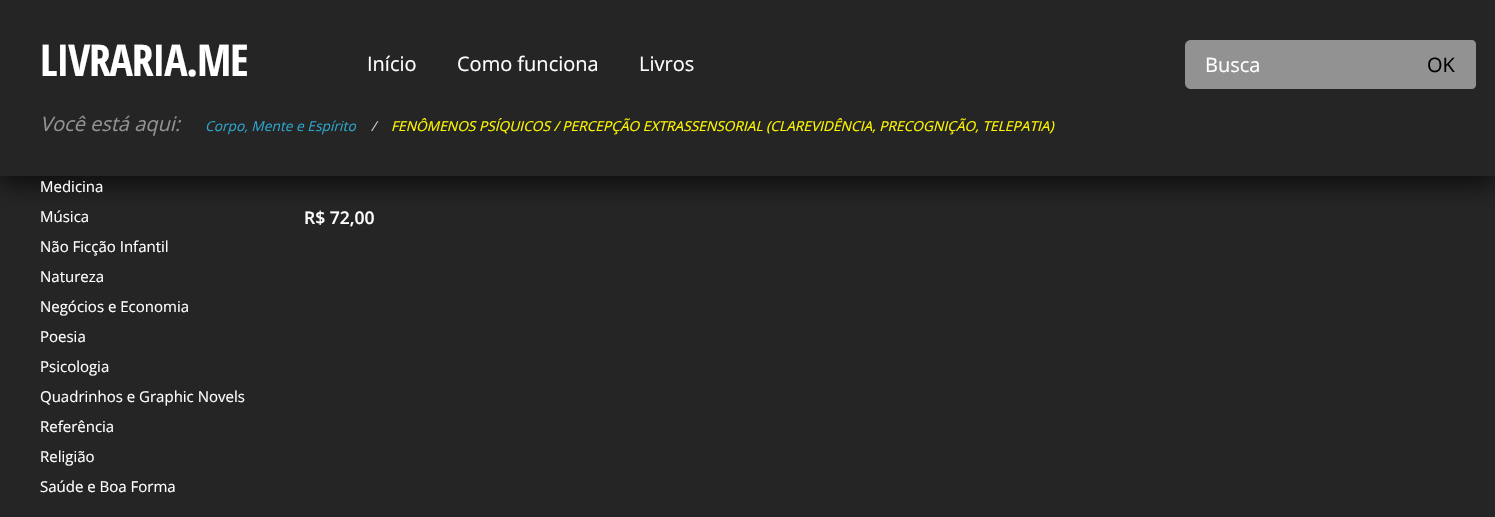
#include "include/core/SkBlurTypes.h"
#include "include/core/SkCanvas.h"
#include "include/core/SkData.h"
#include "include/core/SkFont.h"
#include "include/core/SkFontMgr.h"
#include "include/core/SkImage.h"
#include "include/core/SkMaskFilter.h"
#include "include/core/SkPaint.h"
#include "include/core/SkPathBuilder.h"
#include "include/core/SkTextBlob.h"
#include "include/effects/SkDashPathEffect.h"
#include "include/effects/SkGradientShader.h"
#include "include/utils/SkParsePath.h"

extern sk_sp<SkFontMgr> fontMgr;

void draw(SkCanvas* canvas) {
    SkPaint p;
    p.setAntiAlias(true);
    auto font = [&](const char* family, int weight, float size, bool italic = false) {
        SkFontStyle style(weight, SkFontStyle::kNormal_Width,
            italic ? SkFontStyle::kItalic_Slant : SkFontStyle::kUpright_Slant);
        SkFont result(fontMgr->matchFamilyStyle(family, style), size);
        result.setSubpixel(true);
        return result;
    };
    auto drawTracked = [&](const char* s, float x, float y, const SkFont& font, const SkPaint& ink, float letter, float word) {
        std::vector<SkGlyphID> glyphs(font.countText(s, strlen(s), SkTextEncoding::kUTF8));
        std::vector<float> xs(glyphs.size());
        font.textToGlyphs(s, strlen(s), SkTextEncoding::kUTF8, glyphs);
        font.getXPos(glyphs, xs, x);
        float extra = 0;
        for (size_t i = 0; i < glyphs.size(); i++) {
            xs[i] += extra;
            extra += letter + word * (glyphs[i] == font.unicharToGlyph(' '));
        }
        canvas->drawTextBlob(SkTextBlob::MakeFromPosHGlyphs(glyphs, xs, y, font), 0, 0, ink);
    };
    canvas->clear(0xFF252525);
    p.setColor(0xBA000000);
    p.setMaskFilter(SkMaskFilter::MakeBlur(kNormal_SkBlurStyle, 12.5f));
    canvas->drawRect(SkRect::MakeLTRB(0, 6, 1495, 183), p);
    p.setMaskFilter(nullptr);
    p.setColor(0xFF252525);
    canvas->drawRect(SkRect::MakeLTRB(0, 0, 1495, 176), p);
    auto font1 = font("Open Sans Condensed", 700, 43.75f);
    p.setColor(0xFFFFFFFF);
    drawTracked("LIVRARIA.ME", 40, 76, font1, p, -1.25f, 0);
    auto font2 = font("Open Sans", 400, 20);
    {
        const struct { const char* s; float x, y; } items[] = {
            {"Início", 367, 71},
            {"Como funciona", 457, 71},
            {"Livros", 639, 71},
        };
        for (auto [s, x, y] : items) {
            canvas->drawString(s, x, y, font2, p);
        }
    }
    p.setColor(0xFF929292);
    canvas->drawPath(SkPathBuilder().moveTo(1191, 40).lineTo(1406, 40).lineTo(1406, 89).lineTo(1191, 89).cubicTo(1187.5f, 89, 1185, 86.5f, 1185, 83).lineTo(1185, 46).cubicTo(1185, 42.5f, 1187.5f, 40, 1191, 40).close().detach(), p);
    p.setColor(0xFFFFFFFF);
    canvas->drawString("Busca", 1205, 72, font2, p);
    p.setColor(0xFF929292);
    canvas->drawPath(SkPathBuilder().moveTo(1406, 40).lineTo(1472, 40).cubicTo(1474, 40, 1476, 42, 1476, 44).lineTo(1476, 85).cubicTo(1476, 87, 1474, 89, 1472, 89).lineTo(1406, 89).close().detach(), p);
    p.setColor(0xFF000000);
    canvas->drawString("OK", 1427, 72, font2, p);
    auto font3 = font("Open Sans", 400, 20, true);
    p.setColor(0xFF929292);
    canvas->drawString("Você está aqui:", 40, 131, font3, p);
    auto font4 = font("Open Sans", 400, 13.75f, true);
    p.setColor(0xFF2BA6CB);
    canvas->drawString("Corpo, Mente e Espírito", 205, 131, font4, p);
    p.setColor(0xFFCACACA);
    canvas->drawString("/", 371, 131, font4, p);
    p.setColor(0xFFFFF600);
    canvas->drawString("FENÔMENOS PSÍQUICOS / PERCEPÇÃO EXTRASSENSORIAL (CLAREVIDÊNCIA, PRECOGNIÇÃO, TELEPATIA)", 391, 131, font4, p);
    auto font5 = font("Open Sans", 400, 15);
    p.setColor(0xFFFFFFFF);
    {
        const struct { const char* s; float x, y; } items[] = {
            {"Medicina", 40, 192},
            {"Música", 40, 222},
            {"Não Ficção Infantil", 40, 252},
            {"Natureza", 40, 282},
            {"Negócios e Economia", 40, 312},
            {"Poesia", 40, 342},
            {"Psicologia", 40, 372},
            {"Quadrinhos e Graphic Novels", 40, 402},
            {"Referência", 40, 432},
            {"Religião", 40, 462},
            {"Saúde e Boa Forma", 40, 492},
        };
        for (auto [s, x, y] : items) {
            canvas->drawString(s, x, y, font5, p);
        }
    }
    auto font6 = font("Open Sans", 600, 17.5f);
    canvas->drawString("R$ 72,00", 304, 224, font6, p);
}
